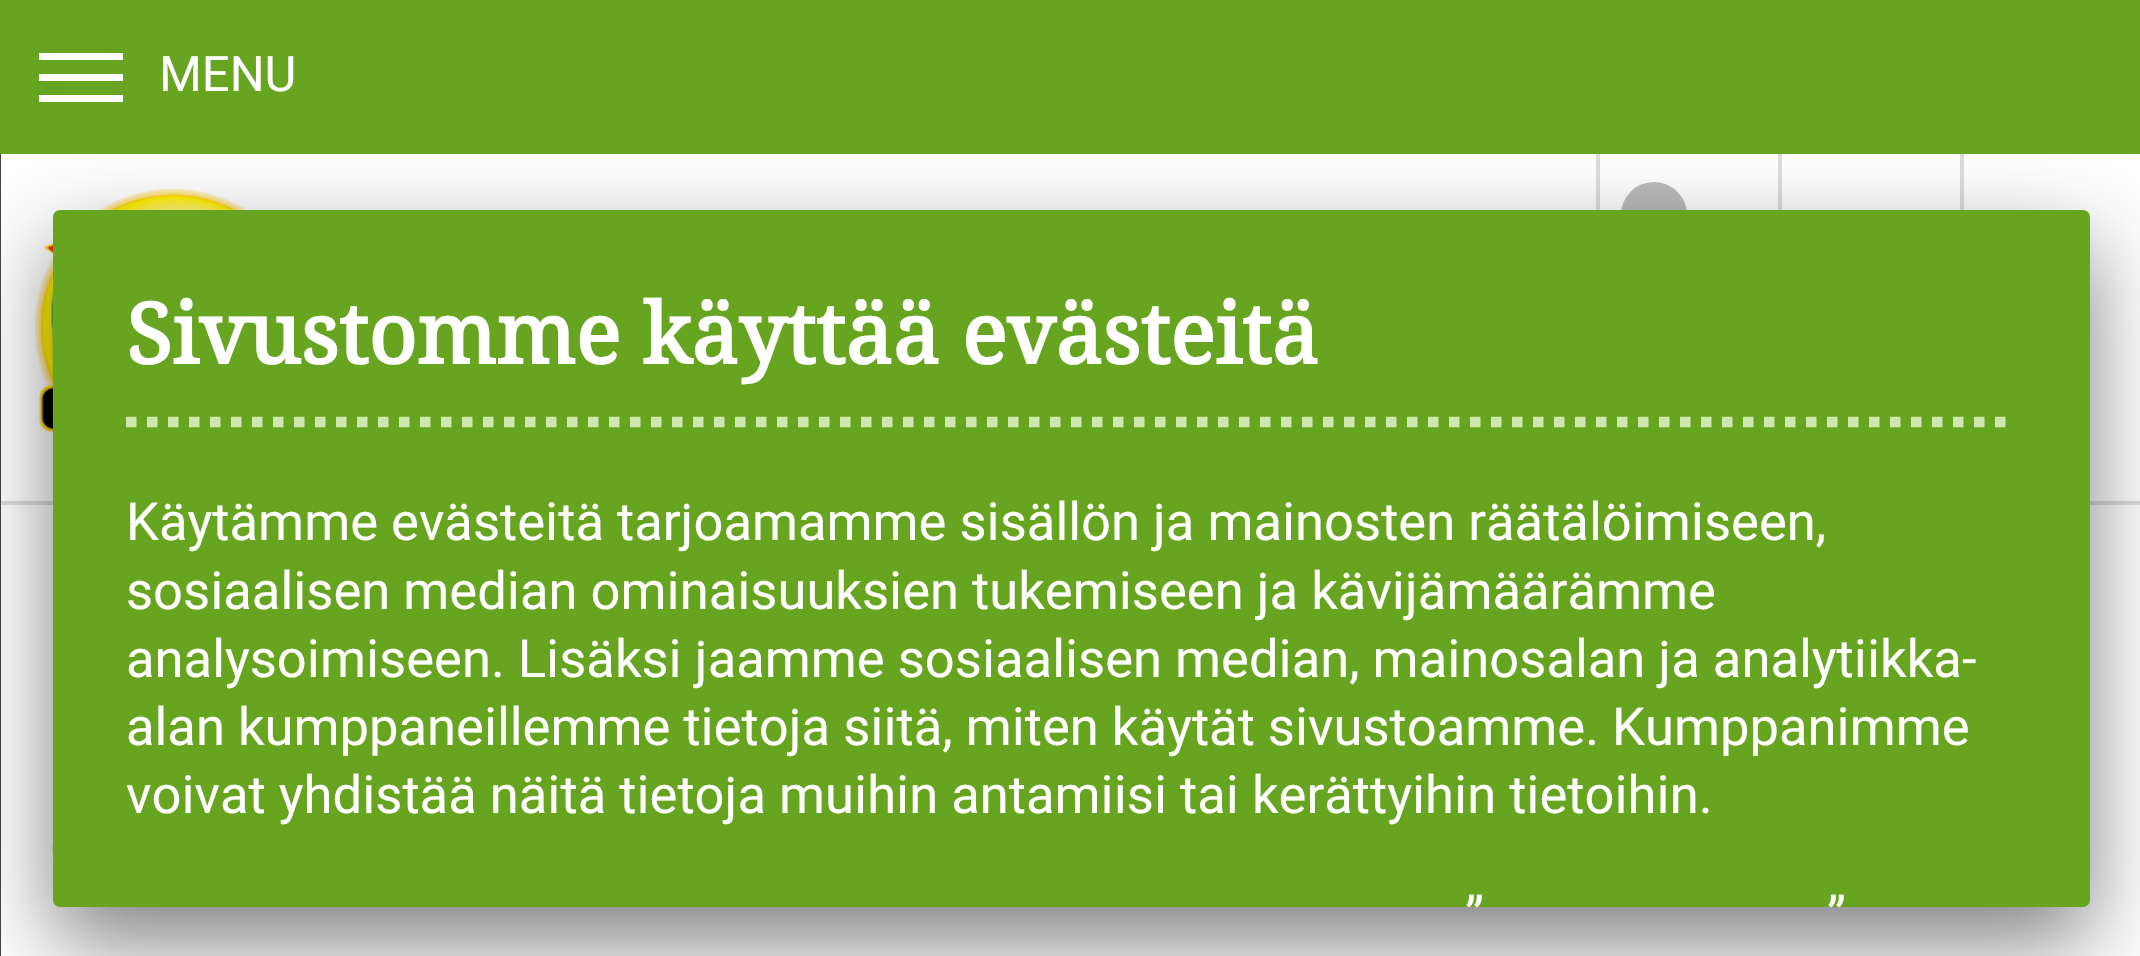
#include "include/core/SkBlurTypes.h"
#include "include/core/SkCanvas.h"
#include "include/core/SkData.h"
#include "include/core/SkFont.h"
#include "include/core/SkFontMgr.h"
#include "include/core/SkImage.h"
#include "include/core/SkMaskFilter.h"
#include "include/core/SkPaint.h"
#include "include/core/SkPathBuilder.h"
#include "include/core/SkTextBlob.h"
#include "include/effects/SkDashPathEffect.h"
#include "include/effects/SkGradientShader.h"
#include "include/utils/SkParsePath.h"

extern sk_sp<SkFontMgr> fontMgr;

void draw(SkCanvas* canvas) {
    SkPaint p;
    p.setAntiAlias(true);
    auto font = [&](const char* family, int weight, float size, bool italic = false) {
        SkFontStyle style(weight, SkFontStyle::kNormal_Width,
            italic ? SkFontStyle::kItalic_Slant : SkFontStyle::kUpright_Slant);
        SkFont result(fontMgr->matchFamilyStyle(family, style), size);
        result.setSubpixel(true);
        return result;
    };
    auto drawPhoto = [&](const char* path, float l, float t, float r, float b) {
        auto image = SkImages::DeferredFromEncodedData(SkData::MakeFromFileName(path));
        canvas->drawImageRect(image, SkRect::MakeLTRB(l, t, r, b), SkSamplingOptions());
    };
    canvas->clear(0xFFFFFFFF);
    {
        const struct { float l, t, r, b; SkColor color; } items[] = {
            {0, 0, 2140, 154, 0xFF67A41F},
            {39, 53, 123, 60, 0xFFFFFFFF},
            {39, 74, 123, 81, 0xFFFFFFFF},
            {39, 95, 123, 102, 0xFFFFFFFF},
        };
        for (auto [l, t, r, b, color] : items) {
            p.setColor(color);
            canvas->drawRect(SkRect::MakeLTRB(l, t, r, b), p);
        }
    }
    auto font1 = font("Heebo", 400, 49);
    canvas->drawString("MENU", 159, 91, font1, p);
    p.setColor(0xFFDDDDDD);
    canvas->drawRect(SkRect::MakeLTRB(0, 501, 2140, 505), p);
    canvas->drawRect(SkRect::MakeLTRB(1596, 154, 1600, 210), p);
    p.setColor(0xFFBBBBBB);
    canvas->drawRoundRect(SkRect::MakeLTRB(1621, 182, 1687, 249), 33, 33, p);
    p.setColor(0xFFDDDDDD);
    canvas->drawRect(SkRect::MakeLTRB(1778, 154, 1782, 210), p);
    canvas->drawRect(SkRect::MakeLTRB(1960, 154, 1964, 210), p);
    drawPhoto("media/1.png", 35, 189, 248, 432);
    p.setStyle(SkPaint::kStroke_Style);
    p.setStrokeWidth(10.5f);
    p.setColor(0xFFCFE8B0);
    p.setPathEffect(SkDashPathEffect::Make({{10.5f, 10.5f}}, 0));
    canvas->drawPath(SkPathBuilder().moveTo(52.5f, 849).lineTo(2089.5f, 849).detach(), p);
    p.setPathEffect(nullptr);
    p.setStyle(SkPaint::kFill_Style);
    p.setColor(0xFF444444);
    canvas->drawRect(SkRect::MakeLTRB(0, 154, 1, 956), p);
    p.setColor(0x80000000);
    p.setMaskFilter(SkMaskFilter::MakeBlur(kNormal_SkBlurStyle, 44));
    canvas->drawRoundRect(SkRect::MakeLTRB(53, 245, 2090, 942), 7, 7, p);
    p.setMaskFilter(nullptr);
    p.setColor(0xFF67A41F);
    canvas->drawRoundRect(SkRect::MakeLTRB(53, 210, 2090, 907), 7, 7, p);
    p.setStyle(SkPaint::kStroke_Style);
    p.setColor(0xFFCFE8B0);
    p.setPathEffect(SkDashPathEffect::Make({{10.5f, 10.5f}}, 0));
    canvas->drawPath(SkPathBuilder().moveTo(126, 422).lineTo(2016, 422).detach(), p);
    p.setPathEffect(nullptr);
    auto font2 = font("Droid Serif", 700, 84);
    p.setStyle(SkPaint::kFill_Style);
    p.setColor(0xFFFFFFFF);
    canvas->drawString("Sivustomme käyttää evästeitä", 126, 364, font2, p);
    auto font3 = font("Heebo", 400, 52.5f);
    {
        const struct { const char* s; float x, y; } items[] = {
            {"Käytämme evästeitä tarjoamamme sisällön ja mainosten räätälöimiseen,", 126, 540},
            {"sosiaalisen median ominaisuuksien tukemiseen ja kävijämäärämme", 126, 609},
            {"analysoimiseen. Lisäksi jaamme sosiaalisen median, mainosalan ja analytiikka-", 126, 677},
            {"alan kumppaneillemme tietoja siitä, miten käytät sivustoamme. Kumppanimme", 126, 745},
            {"voivat yhdistää näitä tietoja muihin antamiisi tai kerättyihin tietoihin.", 126, 813},
            {"”", 1465, 934},
            {"”", 1827, 934},
        };
        for (auto [s, x, y] : items) {
            canvas->drawString(s, x, y, font3, p);
        }
    }
}
